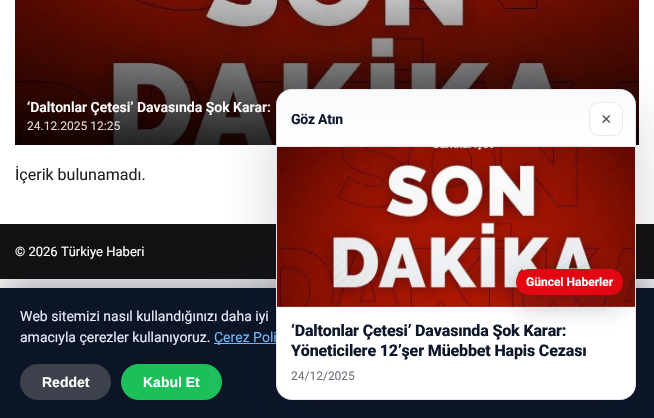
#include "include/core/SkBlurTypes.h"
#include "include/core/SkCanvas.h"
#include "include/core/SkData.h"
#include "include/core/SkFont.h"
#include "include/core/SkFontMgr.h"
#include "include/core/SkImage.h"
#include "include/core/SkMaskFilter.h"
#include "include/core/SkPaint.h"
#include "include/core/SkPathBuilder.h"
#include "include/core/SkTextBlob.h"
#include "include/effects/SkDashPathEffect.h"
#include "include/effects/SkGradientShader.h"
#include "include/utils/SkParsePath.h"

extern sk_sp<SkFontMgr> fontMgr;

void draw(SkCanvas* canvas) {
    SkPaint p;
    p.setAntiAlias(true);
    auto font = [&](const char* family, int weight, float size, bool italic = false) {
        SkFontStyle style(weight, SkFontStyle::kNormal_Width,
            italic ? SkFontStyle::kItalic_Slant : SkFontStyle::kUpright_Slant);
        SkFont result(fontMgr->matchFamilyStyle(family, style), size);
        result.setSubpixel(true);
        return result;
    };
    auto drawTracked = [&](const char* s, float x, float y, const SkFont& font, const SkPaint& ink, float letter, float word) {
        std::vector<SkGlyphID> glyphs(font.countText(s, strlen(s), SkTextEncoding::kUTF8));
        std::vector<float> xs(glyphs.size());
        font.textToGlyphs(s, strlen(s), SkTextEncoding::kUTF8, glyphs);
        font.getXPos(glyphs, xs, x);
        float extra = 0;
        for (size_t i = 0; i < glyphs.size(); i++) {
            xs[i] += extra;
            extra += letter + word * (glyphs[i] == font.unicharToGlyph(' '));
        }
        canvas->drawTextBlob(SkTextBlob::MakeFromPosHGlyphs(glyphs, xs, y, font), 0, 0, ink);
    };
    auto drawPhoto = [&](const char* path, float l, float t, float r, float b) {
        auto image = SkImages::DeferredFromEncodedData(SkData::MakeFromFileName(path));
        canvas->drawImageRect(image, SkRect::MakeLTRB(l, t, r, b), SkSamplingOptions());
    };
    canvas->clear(0xFFFFFFFF);
    drawPhoto("media/1.png", 15, 0, 639, 145);
    auto font1 = font("Roboto", 600, 14);
    p.setColor(0xFFFFFFFF);
    canvas->drawString("‘Daltonlar Çetesi’ Davasında Şok Karar:", 27, 112, font1, p);
    auto font2 = font("Roboto", 400, 12);
    p.setColor(0xFFDEDADA);
    canvas->drawString("24.12.2025 12:25", 27, 130, font2, p);
    auto font3 = font("Roboto", 400, 16);
    p.setColor(0xFF222222);
    canvas->drawString("İçerik bulunamadı.", 15, 180, font3, p);
    p.setColor(0xFF111111);
    canvas->drawRect(SkRect::MakeLTRB(0, 224, 654, 279), p);
    p.setColor(0x590C1522);
    p.setMaskFilter(SkMaskFilter::MakeBlur(kNormal_SkBlurStyle, 20));
    canvas->drawRect(SkRect::MakeLTRB(0, 276, 654, 406), p);
    p.setMaskFilter(nullptr);
    p.setColor(0xFF0B1526);
    canvas->drawRect(SkRect::MakeLTRB(0, 288, 654, 418), p);
    p.setColor(0xFF6FB9FF);
    canvas->drawRect(SkRect::MakeLTRB(214, 343, 276, 344), p);
    p.setColor(0xFF1DBF5B);
    canvas->drawRoundRect(SkRect::MakeLTRB(121, 364, 222, 400), 18, 18, p);
    p.setColor(0x2E0F172A);
    p.setMaskFilter(SkMaskFilter::MakeBlur(kNormal_SkBlurStyle, 27.5f));
    canvas->drawRoundRect(SkRect::MakeLTRB(276, 107, 636, 418), 16, 16, p);
    p.setMaskFilter(nullptr);
    p.setColor(0xFFFFFFFF);
    canvas->drawRoundRect(SkRect::MakeLTRB(276, 89, 636, 400), 16, 16, p);
    p.setStyle(SkPaint::kStroke_Style);
    p.setStrokeWidth(1);
    p.setColor(0x1A0F172A);
    canvas->drawRoundRect(SkRect::MakeLTRB(276.5f, 89.5f, 635.5f, 399.5f), 15.5f, 15.5f, p);
    p.setStyle(SkPaint::kFill_Style);
    {
        const SkColor colors[] = {0xF2F8FAFC, 0xF2FFFFFF};
        const float stops[] = {0, 1};
        const SkPoint ends[] = {{456, 90}, {456, 146}};
        p.setShader(SkGradientShader::MakeLinear(ends, colors, stops, 2, SkTileMode::kClamp));
        p.setAlpha(255);
    }
    canvas->drawPath(SkPathBuilder().moveTo(292, 90).lineTo(620, 90).cubicTo(628.5f, 90, 635, 96.5f, 635, 105).lineTo(635, 146).lineTo(277, 146).lineTo(277, 105).cubicTo(277, 96.5f, 283.5f, 90, 292, 90).close().detach(), p);
    p.setShader(nullptr);
    p.setColor(0xFFE5E8EB);
    canvas->drawRect(SkRect::MakeLTRB(277, 146, 635, 147), p);
    auto font4 = font("Roboto", 700, 14);
    p.setColor(0xFF0F172A);
    drawTracked("Göz Atın", 291, 124, font4, p, -0.25f, 0);
    p.setColor(0xFFFFFFFF);
    canvas->drawRoundRect(SkRect::MakeLTRB(589.5f, 102.5f, 622.5f, 135.5f), 9.5f, 9.5f, p);
    p.setStyle(SkPaint::kStroke_Style);
    p.setColor(0xFFE7E8EA);
    canvas->drawRoundRect(SkRect::MakeLTRB(589.5f, 102.5f, 622.5f, 135.5f), 9.5f, 9.5f, p);
    auto font5 = font("Liberation Sans", 400, 18);
    p.setStyle(SkPaint::kFill_Style);
    p.setColor(0xFF525866);
    canvas->drawString("×", 601, 125, font5, p);
    drawPhoto("media/2.png", 277, 147, 635, 307);
    canvas->save();
    canvas->clipPath(SkPathBuilder().moveTo(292, 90).lineTo(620, 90).cubicTo(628.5f, 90, 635, 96.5f, 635, 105).lineTo(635, 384).cubicTo(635, 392.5f, 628.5f, 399, 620, 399).lineTo(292, 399).cubicTo(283.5f, 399, 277, 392.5f, 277, 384).lineTo(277, 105).cubicTo(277, 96.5f, 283.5f, 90, 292, 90).close().detach(), true);
    p.setColor(0x470F172A);
    p.setMaskFilter(SkMaskFilter::MakeBlur(kNormal_SkBlurStyle, 13));
    canvas->drawRoundRect(SkRect::MakeLTRB(516, 279, 623, 305), 13, 13, p);
    p.setMaskFilter(nullptr);
    canvas->restore();
    p.setColor(0xFFE30613);
    canvas->drawRoundRect(SkRect::MakeLTRB(516, 269, 623, 295), 13, 13, p);
    auto font6 = font("Roboto", 700, 12);
    p.setColor(0xFFFFFFFF);
    canvas->drawString("Güncel Haberler", 526, 286, font6, p);
    auto font7 = font("Roboto", 800, 16);
    p.setColor(0xFF0F172A);
    drawTracked("‘Daltonlar Çetesi’ Davasında Şok Karar:", 291, 336, font7, p, -0.15f, 0);
    drawTracked("Yöneticilere 12’şer Müebbet Hapis Cezası", 291, 356, font7, p, -0.15f, 0);
    p.setColor(0xFF6F747F);
    canvas->drawString("24/12/2025", 291, 380, font2, p);
    auto font8 = font("Roboto", 400, 13);
    p.setColor(0xFFFFFFFF);
    canvas->drawString("© 2026 Türkiye Haberi", 15, 256, font8, p);
    auto font9 = font("Roboto", 400, 14);
    p.setColor(0xFFE7ECF6);
    canvas->drawString("Web sitemizi nasıl kullandığınızı daha iyi", 20, 321, font9, p);
    canvas->drawString("amacıyla çerezler kullanıyoruz.", 20, 342, font9, p);
    p.setColor(0xFF6FB9FF);
    canvas->drawString("Çerez Poli", 214, 342, font9, p);
    p.setColor(0xFF3C414B);
    canvas->drawRoundRect(SkRect::MakeLTRB(20, 364, 111, 400), 18, 18, p);
    auto font10 = font("Liberation Sans", 700, 14);
    p.setColor(0xFFFFFFFF);
    canvas->drawString("Reddet", 42, 387, font10, p);
    canvas->drawString("Kabul Et", 143, 387, font10, p);
}
